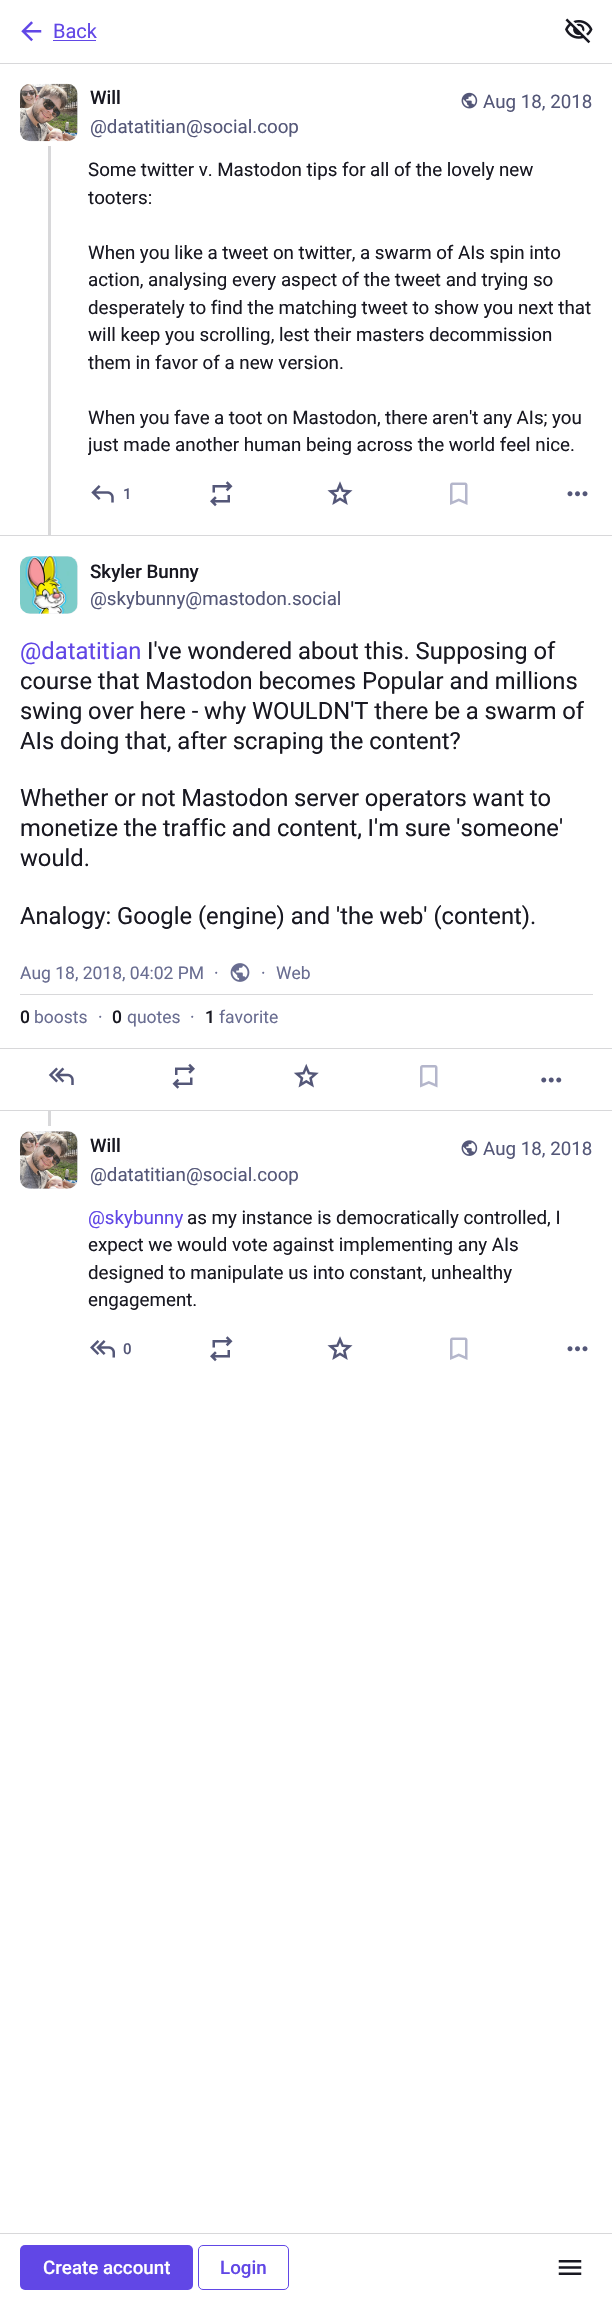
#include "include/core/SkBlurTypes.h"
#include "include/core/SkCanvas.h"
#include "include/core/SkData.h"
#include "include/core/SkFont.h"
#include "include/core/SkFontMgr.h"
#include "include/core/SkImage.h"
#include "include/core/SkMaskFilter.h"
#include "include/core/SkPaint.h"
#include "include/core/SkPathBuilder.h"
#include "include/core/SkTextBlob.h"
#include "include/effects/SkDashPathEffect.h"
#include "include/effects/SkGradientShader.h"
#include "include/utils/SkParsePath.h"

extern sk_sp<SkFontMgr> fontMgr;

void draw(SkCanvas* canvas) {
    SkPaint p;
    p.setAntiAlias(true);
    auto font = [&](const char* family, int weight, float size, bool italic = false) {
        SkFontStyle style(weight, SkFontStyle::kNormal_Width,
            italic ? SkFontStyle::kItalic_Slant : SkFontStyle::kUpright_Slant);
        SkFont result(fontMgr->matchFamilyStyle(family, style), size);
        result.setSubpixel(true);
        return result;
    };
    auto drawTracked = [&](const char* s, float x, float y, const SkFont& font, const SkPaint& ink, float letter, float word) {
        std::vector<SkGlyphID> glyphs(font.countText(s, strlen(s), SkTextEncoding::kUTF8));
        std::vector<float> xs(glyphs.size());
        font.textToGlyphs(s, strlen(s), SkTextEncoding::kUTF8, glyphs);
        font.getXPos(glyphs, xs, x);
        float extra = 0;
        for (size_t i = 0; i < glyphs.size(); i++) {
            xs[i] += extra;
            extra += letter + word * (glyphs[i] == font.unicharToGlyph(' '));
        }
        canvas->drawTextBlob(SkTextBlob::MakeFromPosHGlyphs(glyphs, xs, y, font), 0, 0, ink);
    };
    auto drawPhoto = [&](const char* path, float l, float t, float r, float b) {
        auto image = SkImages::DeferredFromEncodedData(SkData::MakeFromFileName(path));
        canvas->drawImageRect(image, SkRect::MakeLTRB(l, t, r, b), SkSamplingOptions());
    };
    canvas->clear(0xFFFFFFFF);
    p.setColor(0xFFD8D8DA);
    canvas->drawRect(SkRect::MakeLTRB(0, 63, 612, 64), p);
    drawPhoto("media/1.png", 21, 21, 42, 42);
    auto font1 = font("Roboto", 400, 20);
    p.setColor(0xFF6147E6);
    canvas->drawString("Back", 53, 38, font1, p);
    canvas->drawRect(SkRect::MakeLTRB(53, 40, 96, 41), p);
    drawPhoto("media/2.png", 565, 18, 593, 44);
    p.setColor(0xFFECEDF1);
    canvas->drawRoundRect(SkRect::MakeLTRB(20, 84, 78, 141), 10, 10, p);
    drawPhoto("media/3.png", 20, 83, 78, 142);
    auto font2 = font("Roboto", 500, 18.75f);
    p.setColor(0xFF181821);
    canvas->drawString("Will", 90, 104, font2, p);
    auto font3 = font("Roboto", 400, 18.75f);
    p.setColor(0xFF545778);
    canvas->drawString("@datatitian@social.coop", 90, 133, font3, p);
    drawPhoto("media/4.png", 461, 92, 478, 109);
    canvas->drawString("Aug 18, 2018", 483, 108, font3, p);
    p.setColor(0xFFD8D8DA);
    canvas->drawRect(SkRect::MakeLTRB(48, 146, 51, 535), p);
    p.setColor(0xFF181821);
    drawTracked("Some twitter v. Mastodon tips for all of the lovely new", 88, 176, font3, p, 0, -0.1f);
    canvas->drawString("tooters:", 88, 204, font3, p);
    drawTracked("When you like a tweet on twitter, a swarm of AIs spin into", 88, 259, font3, p, 0, -0.1f);
    {
        const struct { const char* s; float x, y; } items[] = {
            {"action, analysing every aspect of the tweet and trying so", 88, 286},
            {"desperately to find the matching tweet to show you next that", 88, 314},
            {"will keep you scrolling, lest their masters decommission", 88, 341},
            {"them in favor of a new version.", 88, 369},
        };
        for (auto [s, x, y] : items) {
            canvas->drawString(s, x, y, font3, p);
        }
    }
    drawTracked("When you fave a toot on Mastodon, there aren't any AIs; you", 88, 424, font3, p, 0, -0.25f);
    canvas->save();
    canvas->clipRect(SkRect::MakeLTRB(88, 154, 593, 459));
    canvas->drawString("just made another human being across the world feel nice.", 88, 451, font3, p);
    canvas->restore();
    drawPhoto("media/5.png", 91, 485, 114, 503);
    auto font4 = font("Roboto", 500, 15);
    p.setColor(0xFF545778);
    canvas->drawString("1", 123, 499, font4, p);
    drawPhoto("media/6.png", 210, 481, 233, 507);
    drawPhoto("media/7.png", 327, 481, 353, 505);
    drawPhoto("media/8.png", 450, 482, 468, 505);
    drawPhoto("media/9.png", 567, 491, 588, 497);
    p.setColor(0xFFD8D8DA);
    canvas->drawRect(SkRect::MakeLTRB(0, 535, 612, 536), p);
    p.setColor(0xFFECEDF1);
    canvas->drawRoundRect(SkRect::MakeLTRB(20, 556, 78, 614), 10, 10, p);
    drawPhoto("media/10.png", 20, 556, 78, 614);
    p.setColor(0xFF181821);
    canvas->drawString("Skyler Bunny", 90, 578, font2, p);
    p.setColor(0xFF545778);
    canvas->drawString("@skybunny@mastodon.social", 90, 605, font3, p);
    auto font5 = font("Roboto", 400, 23.75f);
    p.setColor(0xFF6147E6);
    canvas->drawString("@datatitian", 20, 659, font5, p);
    p.setColor(0xFF181821);
    canvas->drawString("I've wondered about this. Supposing of", 147, 659, font5, p);
    canvas->drawString("course that Mastodon becomes Popular and millions", 20, 689, font5, p);
    drawTracked("swing over here - why WOULDN'T there be a swarm of", 20, 719, font5, p, 0, -0.1f);
    canvas->drawString("AIs doing that, after scraping the content?", 20, 749, font5, p);
    drawTracked("Whether or not Mastodon server operators want to", 20, 806, font5, p, 0, -0.25f);
    drawTracked("monetize the traffic and content, I'm sure 'someone'", 20, 836, font5, p, 0, -0.25f);
    canvas->drawString("would.", 20, 866, font5, p);
    canvas->drawString("Analogy: Google (engine) and 'the web' (content).", 20, 924, font5, p);
    p.setColor(0xFFD8D8DA);
    canvas->drawRect(SkRect::MakeLTRB(20, 994, 593, 995), p);
    auto font6 = font("Roboto", 400, 17.5f);
    p.setColor(0xFF696D91);
    canvas->drawString("Aug 18, 2018, 04:02 PM", 20, 979, font6, p);
    canvas->drawString("·", 214, 979, font6, p);
    drawPhoto("media/11.png", 230, 963, 250, 982);
    canvas->drawString("·", 261, 979, font6, p);
    canvas->drawString("Web", 276, 979, font6, p);
    auto font7 = font("Roboto", 500, 17.5f);
    p.setColor(0xFF181821);
    canvas->drawString("0", 20, 1023, font7, p);
    p.setColor(0xFF696D91);
    canvas->drawString("boosts", 34, 1023, font6, p);
    canvas->drawString("·", 98, 1023, font6, p);
    p.setColor(0xFF181821);
    canvas->drawString("0", 112, 1023, font7, p);
    p.setColor(0xFF696D91);
    canvas->drawString("quotes", 127, 1023, font6, p);
    canvas->drawString("·", 190, 1023, font6, p);
    p.setColor(0xFF181821);
    canvas->drawString("1", 205, 1023, font7, p);
    p.setColor(0xFF696D91);
    canvas->drawString("favorite", 219, 1023, font6, p);
    p.setColor(0xFFD8D8DA);
    canvas->drawRect(SkRect::MakeLTRB(0, 1048, 612, 1049), p);
    canvas->drawRect(SkRect::MakeLTRB(0, 1110, 612, 1111), p);
    drawPhoto("media/12.png", 48, 1067, 74, 1085);
    drawPhoto("media/13.png", 172, 1063, 195, 1089);
    drawPhoto("media/14.png", 293, 1063, 319, 1088);
    drawPhoto("media/15.png", 420, 1065, 438, 1088);
    drawPhoto("media/16.png", 541, 1077, 562, 1083);
    canvas->drawRect(SkRect::MakeLTRB(48, 1111, 51, 1126), p);
    p.setColor(0xFFECEDF1);
    canvas->drawRoundRect(SkRect::MakeLTRB(20, 1131, 78, 1189), 10, 10, p);
    drawPhoto("media/17.png", 20, 1131, 78, 1189);
    p.setColor(0xFF181821);
    canvas->drawString("Will", 90, 1152, font2, p);
    p.setColor(0xFF545778);
    canvas->drawString("@datatitian@social.coop", 90, 1181, font3, p);
    drawPhoto("media/18.png", 461, 1140, 478, 1156);
    canvas->drawString("Aug 18, 2018", 483, 1155, font3, p);
    p.setColor(0xFF6147E6);
    canvas->drawString("@skybunny", 88, 1224, font3, p);
    p.setColor(0xFF181821);
    {
        const struct { const char* s; float x, y; } items[] = {
            {"as my instance is democratically controlled, I", 187, 1224},
            {"expect we would vote against implementing any AIs", 88, 1251},
            {"designed to manipulate us into constant, unhealthy", 88, 1279},
            {"engagement.", 88, 1306},
        };
        for (auto [s, x, y] : items) {
            canvas->drawString(s, x, y, font3, p);
        }
    }
    drawPhoto("media/19.png", 90, 1340, 115, 1358);
    p.setColor(0xFF545778);
    canvas->drawString("0", 123, 1354, font4, p);
    drawPhoto("media/6.png", 210, 1336, 233, 1362);
    drawPhoto("media/7.png", 327, 1336, 353, 1360);
    drawPhoto("media/8.png", 450, 1337, 468, 1360);
    drawPhoto("media/9.png", 567, 1346, 588, 1352);
    p.setColor(0xFFD8D8DA);
    canvas->drawRect(SkRect::MakeLTRB(0, 2233, 612, 2234), p);
    p.setColor(0xFF6147E6);
    canvas->drawRoundRect(SkRect::MakeLTRB(20, 2245, 193, 2290), 5, 5, p);
    p.setColor(0xFFFFFFFF);
    canvas->drawString("Create account", 43, 2274, font2, p);
    p.setStyle(SkPaint::kStroke_Style);
    p.setStrokeWidth(1);
    p.setColor(0xFF6147E6);
    canvas->drawRoundRect(SkRect::MakeLTRB(198.5f, 2245.5f, 288.5f, 2289.5f), 4.5f, 4.5f, p);
    p.setStyle(SkPaint::kFill_Style);
    canvas->drawString("Login", 220, 2274, font2, p);
    drawPhoto("media/20.png", 558, 2260, 582, 2275);
}
